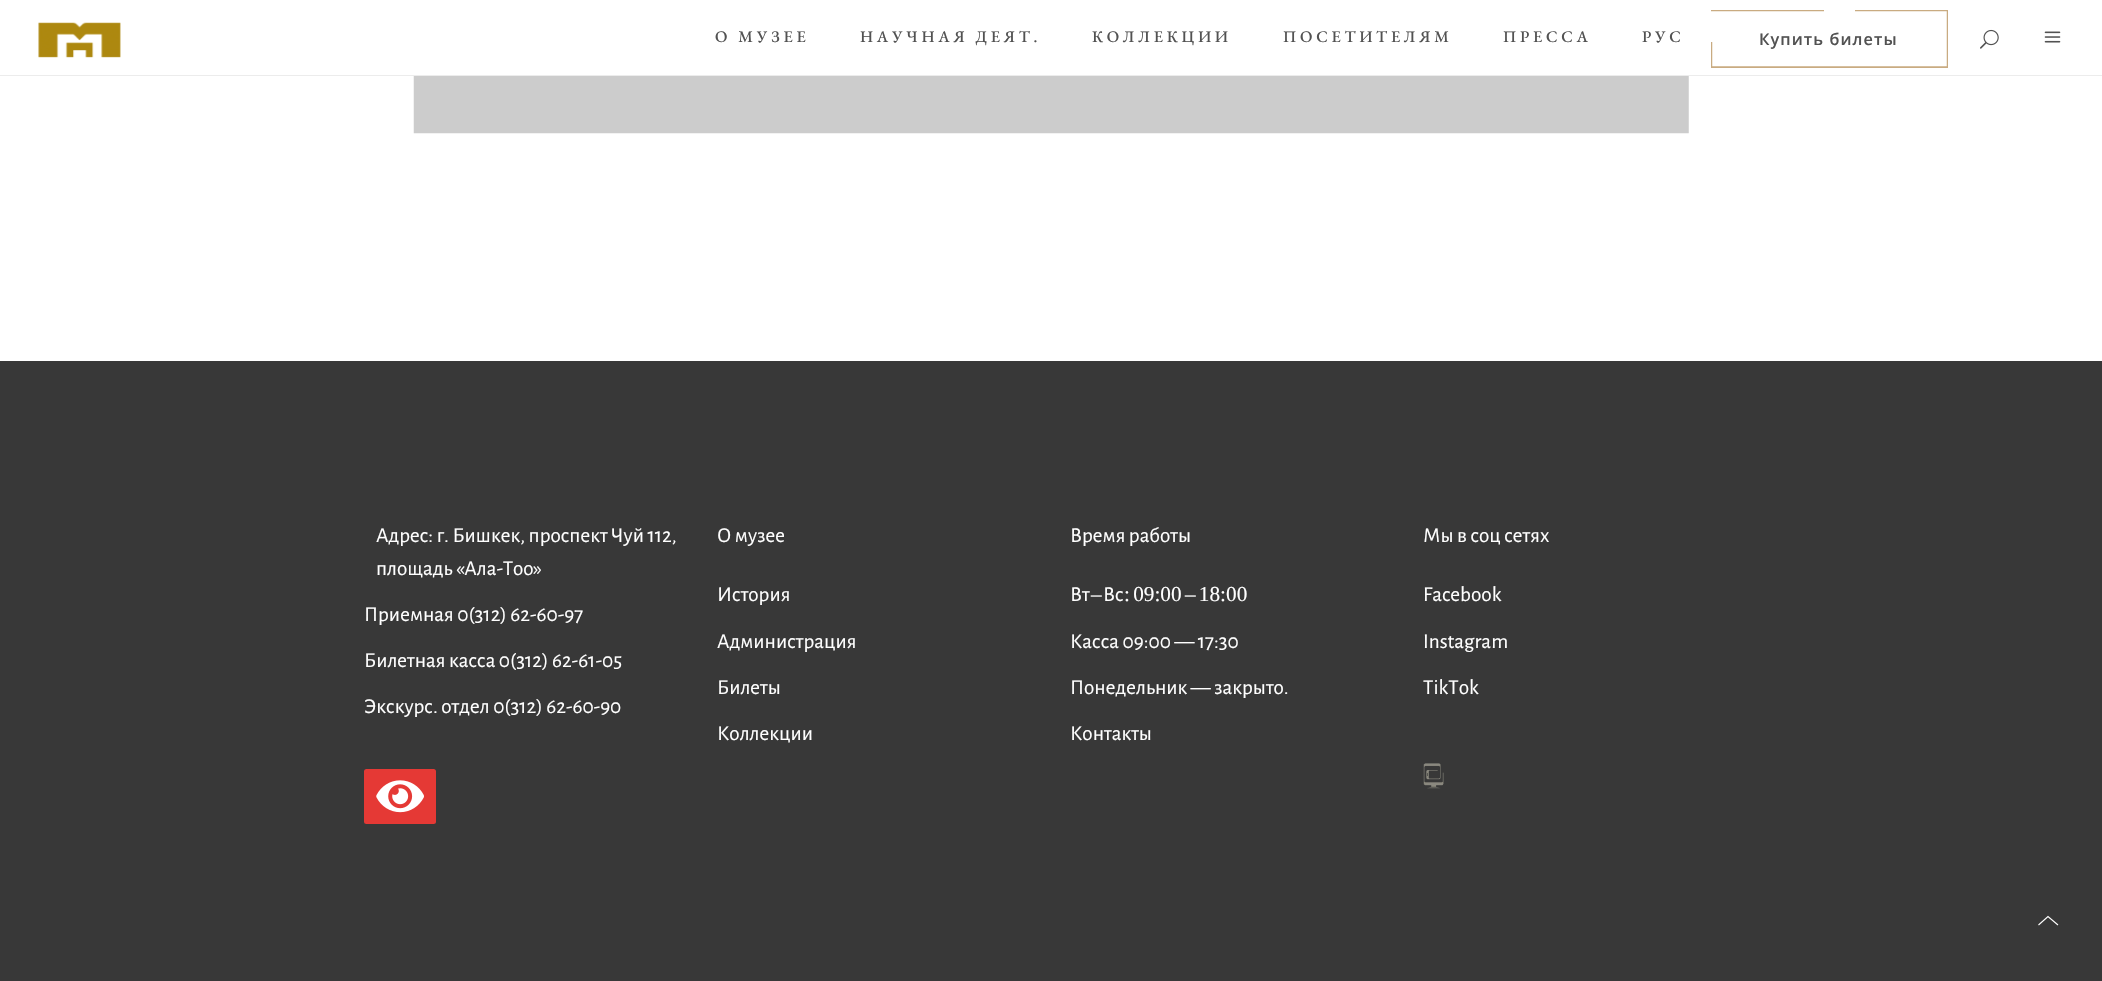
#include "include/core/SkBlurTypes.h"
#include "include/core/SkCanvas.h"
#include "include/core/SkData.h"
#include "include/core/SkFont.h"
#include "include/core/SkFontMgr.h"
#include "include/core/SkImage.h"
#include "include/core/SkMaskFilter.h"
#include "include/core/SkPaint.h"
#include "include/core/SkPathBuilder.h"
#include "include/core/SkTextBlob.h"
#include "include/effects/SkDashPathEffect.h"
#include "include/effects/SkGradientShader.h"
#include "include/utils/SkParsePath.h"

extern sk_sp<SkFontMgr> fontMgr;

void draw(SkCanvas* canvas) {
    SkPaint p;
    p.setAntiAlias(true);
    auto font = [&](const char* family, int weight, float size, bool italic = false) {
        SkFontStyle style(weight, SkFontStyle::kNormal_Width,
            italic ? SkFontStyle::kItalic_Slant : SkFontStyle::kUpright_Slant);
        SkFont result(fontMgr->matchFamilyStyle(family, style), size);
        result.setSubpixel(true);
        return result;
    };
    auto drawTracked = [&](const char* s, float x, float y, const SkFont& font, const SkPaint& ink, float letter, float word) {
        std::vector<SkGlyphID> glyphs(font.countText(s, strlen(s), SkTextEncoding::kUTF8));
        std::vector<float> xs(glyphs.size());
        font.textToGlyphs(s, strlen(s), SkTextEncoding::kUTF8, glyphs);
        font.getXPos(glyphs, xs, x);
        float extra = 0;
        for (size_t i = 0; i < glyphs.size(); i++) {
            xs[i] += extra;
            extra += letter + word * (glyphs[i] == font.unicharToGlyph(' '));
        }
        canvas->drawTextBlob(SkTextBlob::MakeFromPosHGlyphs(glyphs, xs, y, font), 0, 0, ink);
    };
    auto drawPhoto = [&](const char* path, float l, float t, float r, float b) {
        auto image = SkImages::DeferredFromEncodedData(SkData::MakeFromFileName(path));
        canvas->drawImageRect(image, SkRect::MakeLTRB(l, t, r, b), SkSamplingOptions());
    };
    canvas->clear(0xFFFFFFFF);
    p.setColor(0xFFECECEC);
    canvas->drawRect(SkRect::MakeLTRB(0, 75, 2102, 76), p);
    drawPhoto("media/1.png", 38, 22, 121, 58);
    auto font1 = font("EB Garamond", 500, 16.25f);
    p.setColor(0xFF525252);
    {
        const struct { const char* s; float x, y; } items[] = {
            {"О МУЗЕЕ", 715, 42},
            {"НАУЧНАЯ ДЕЯТ.", 860, 42},
            {"КОЛЛЕКЦИИ", 1092, 42},
            {"ПОСЕТИТЕЛЯМ", 1283, 42},
            {"ПРЕССА", 1503, 42},
            {"РУС", 1642, 42},
        };
        for (auto [s, x, y] : items) {
            drawTracked(s, x, y, font1, p, 3.75f, 0);
        }
    }
    auto font2 = font("Open Sans", 600, 16.25f);
    drawTracked("Купить билеты", 1759, 45, font2, p, 1.1f, 0);
    canvas->save();
    canvas->clipRect(SkRect::MakeLTRB(1711, 10, 1948, 68));
    p.setStyle(SkPaint::kStroke_Style);
    p.setStrokeWidth(2.5f);
    p.setColor(0xFFC9AB81);
    canvas->drawPath(SkPathBuilder().moveTo(1711, 10).lineTo(1824, 10).moveTo(1855, 10).lineTo(1948, 10).lineTo(1948, 67.5f).lineTo(1711, 67.5f).lineTo(1711, 42).moveTo(1711, 11).lineTo(1711, 10).detach(), p);
    canvas->restore();
    drawPhoto("media/2.png", 1980, 29, 1999, 49);
    drawPhoto("media/3.png", 2044, 31, 2061, 43);
    drawPhoto("media/4.png", 413, 76, 1689, 134);
    p.setStyle(SkPaint::kFill_Style);
    p.setColor(0xFF383838);
    canvas->drawRect(SkRect::MakeLTRB(0, 361, 2102, 981), p);
    auto font3 = font("Alegreya Sans", 400, 21.25f);
    p.setColor(0xFFFFFFFF);
    {
        const struct { const char* s; float x, y; } items[] = {
            {"Адрес: г. Бишкек, проспект Чуй 112,", 376, 542},
            {"площадь «Ала-Тоо»", 376, 575},
            {"Приемная 0(312) 62-60-97", 364, 621},
            {"Билетная касса 0(312) 62-61-05", 364, 667},
            {"Экскурс. отдел 0(312) 62-60-90", 364, 713},
        };
        for (auto [s, x, y] : items) {
            canvas->drawString(s, x, y, font3, p);
        }
    }
    p.setColor(0xFFE53935);
    canvas->drawRoundRect(SkRect::MakeLTRB(364, 769, 436, 824), 2.5f, 2.5f, p);
    drawPhoto("media/5.png", 376, 780, 424, 813);
    p.setColor(0xFFFFFFFF);
    {
        const struct { const char* s; float x, y; } items[] = {
            {"О музее", 717, 542},
            {"История", 717, 601},
            {"Администрация", 717, 648},
            {"Билеты", 717, 694},
            {"Коллекции", 717, 740},
            {"Время работы", 1070, 542},
            {"Вт", 1070, 601},
        };
        for (auto [s, x, y] : items) {
            canvas->drawString(s, x, y, font3, p);
        }
    }
    auto font4 = font("Liberation Serif", 400, 21.25f);
    canvas->drawString("‒", 1091, 601, font4, p);
    canvas->drawString("Вс", 1103, 601, font3, p);
    drawTracked(": 09:00 ‒ 18:00", 1124, 601, font4, p, 0, -2);
    {
        const struct { const char* s; float x, y; } items[] = {
            {"Касса 09:00 — 17:30", 1070, 648},
            {"Понедельник — закрыто.", 1070, 694},
            {"Контакты", 1070, 740},
            {"Мы в соц сетях", 1423, 542},
            {"Facebook", 1423, 601},
            {"Instagram", 1423, 648},
            {"TikTok", 1423, 694},
        };
        for (auto [s, x, y] : items) {
            canvas->drawString(s, x, y, font3, p);
        }
    }
    drawPhoto("media/6.png", 1423, 763, 1444, 789);
    p.setStyle(SkPaint::kStroke_Style);
    p.setStrokeWidth(1.1f);
    canvas->drawPath(SkPathBuilder().moveTo(2058, 925).lineTo(2048, 916.5f).lineTo(2038.5f, 925).detach(), p);
}
